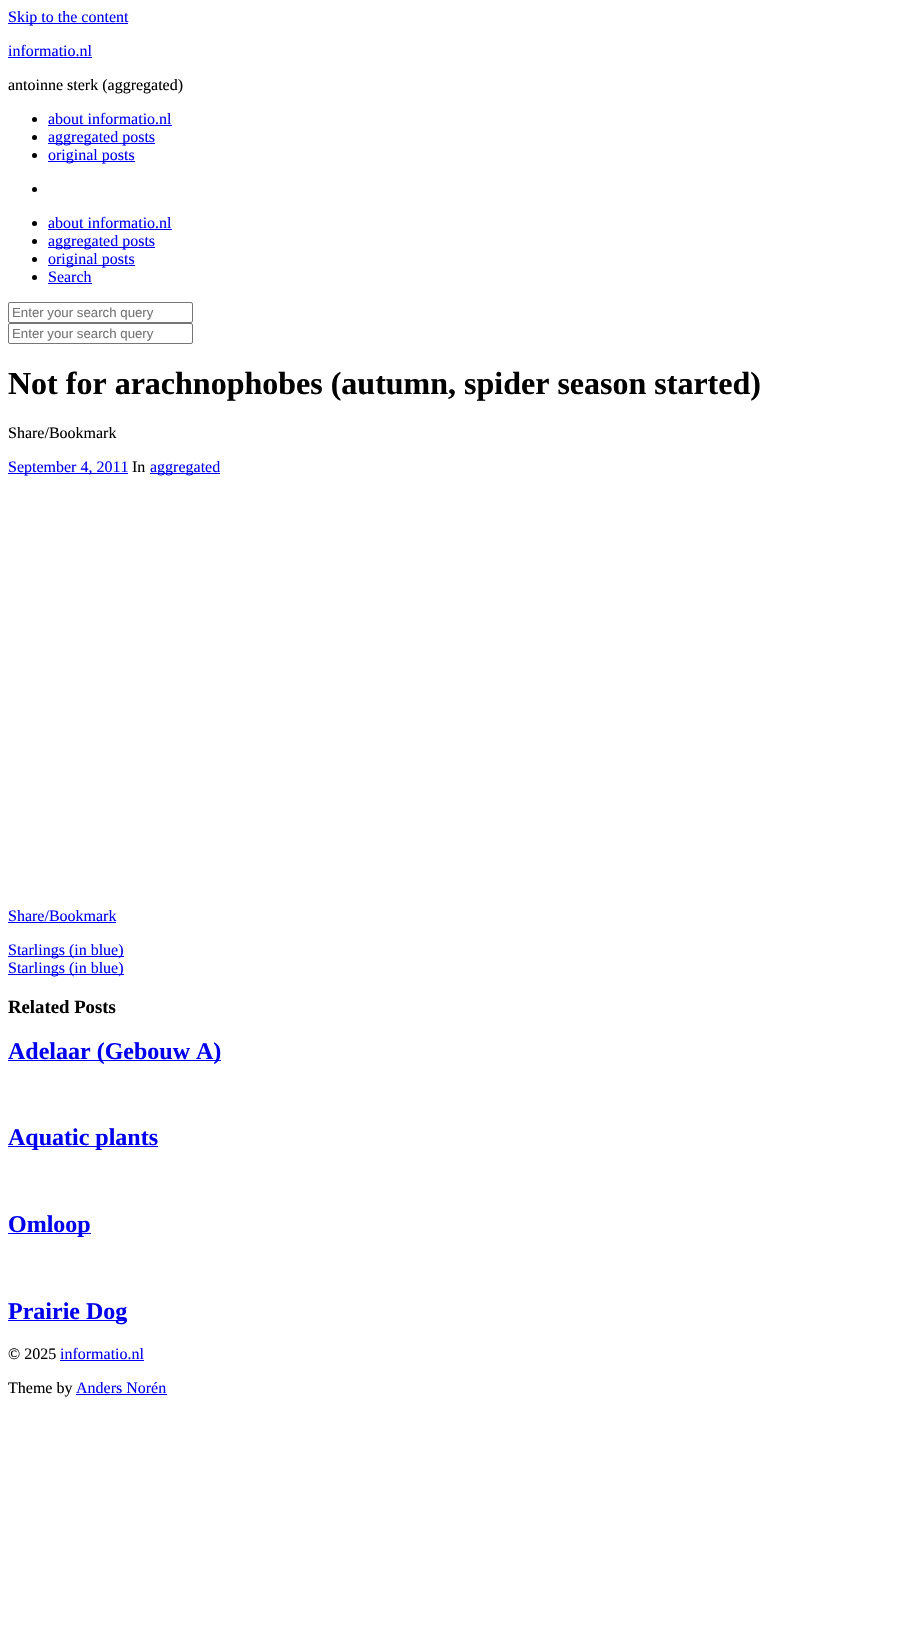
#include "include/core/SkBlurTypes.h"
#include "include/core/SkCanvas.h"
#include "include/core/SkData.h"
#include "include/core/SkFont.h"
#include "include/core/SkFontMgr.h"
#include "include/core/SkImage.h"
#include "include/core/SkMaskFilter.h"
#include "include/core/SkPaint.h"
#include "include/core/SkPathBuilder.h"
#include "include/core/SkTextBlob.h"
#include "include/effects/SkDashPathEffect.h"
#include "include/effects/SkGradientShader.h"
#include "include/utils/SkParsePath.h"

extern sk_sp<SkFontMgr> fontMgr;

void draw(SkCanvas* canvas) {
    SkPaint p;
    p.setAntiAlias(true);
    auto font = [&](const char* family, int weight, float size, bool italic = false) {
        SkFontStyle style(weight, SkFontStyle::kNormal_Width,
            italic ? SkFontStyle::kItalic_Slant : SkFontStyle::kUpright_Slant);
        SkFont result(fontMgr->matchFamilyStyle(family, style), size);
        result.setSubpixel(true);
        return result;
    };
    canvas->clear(0xFFFFFFFF);
    p.setColor(0xFF0000EE);
    canvas->drawRect(SkRect::MakeLTRB(8, 23, 128, 24), p);
    auto font1 = font("Liberation Serif", 400, 16);
    canvas->drawString("Skip to the content", 8, 22, font1, p);
    canvas->drawString("informatio.nl", 8, 56, font1, p);
    canvas->drawRect(SkRect::MakeLTRB(8, 57, 92, 58), p);
    p.setColor(0xFF000000);
    canvas->drawString("antoinne sterk (aggregated)", 8, 90, font1, p);
    canvas->drawCircle(34.5f, 119.5f, 2.5f, p);
    p.setColor(0xFF0000EE);
    canvas->drawString("about informatio.nl", 48, 124, font1, p);
    canvas->drawRect(SkRect::MakeLTRB(48, 125, 172, 126), p);
    p.setColor(0xFF000000);
    canvas->drawCircle(34.5f, 137.5f, 2.5f, p);
    p.setColor(0xFF0000EE);
    canvas->drawRect(SkRect::MakeLTRB(48, 143, 155, 144), p);
    canvas->drawString("aggregated posts", 48, 142, font1, p);
    p.setColor(0xFF000000);
    canvas->drawCircle(34.5f, 155.5f, 2.5f, p);
    p.setColor(0xFF0000EE);
    canvas->drawRect(SkRect::MakeLTRB(48, 161, 135, 162), p);
    canvas->drawString("original posts", 48, 160, font1, p);
    p.setColor(0xFF000000);
    canvas->drawCircle(34.5f, 189.5f, 2.5f, p);
    canvas->drawCircle(34.5f, 223.5f, 2.5f, p);
    p.setColor(0xFF0000EE);
    canvas->drawString("about informatio.nl", 48, 228, font1, p);
    canvas->drawRect(SkRect::MakeLTRB(48, 229, 172, 230), p);
    p.setColor(0xFF000000);
    canvas->drawCircle(34.5f, 241.5f, 2.5f, p);
    p.setColor(0xFF0000EE);
    canvas->drawRect(SkRect::MakeLTRB(48, 247, 155, 248), p);
    canvas->drawString("aggregated posts", 48, 246, font1, p);
    p.setColor(0xFF000000);
    canvas->drawCircle(34.5f, 259.5f, 2.5f, p);
    p.setColor(0xFF0000EE);
    canvas->drawRect(SkRect::MakeLTRB(48, 265, 135, 266), p);
    canvas->drawString("original posts", 48, 264, font1, p);
    p.setColor(0xFF000000);
    canvas->drawCircle(34.5f, 277.5f, 2.5f, p);
    p.setColor(0xFF0000EE);
    canvas->drawString("Search", 48, 282, font1, p);
    canvas->drawRect(SkRect::MakeLTRB(48, 283, 92, 284), p);
    p.setStyle(SkPaint::kStroke_Style);
    p.setStrokeWidth(1);
    p.setColor(0xFF767676);
    canvas->drawRoundRect(SkRect::MakeLTRB(8.5f, 302.5f, 192.5f, 322.5f), 1.5f, 1.5f, p);
    auto font2 = font("Liberation Sans", 400, 13.25f);
    p.setStyle(SkPaint::kFill_Style);
    p.setColor(0xFF757575);
    canvas->drawString("Enter your search query", 12, 317, font2, p);
    p.setStyle(SkPaint::kStroke_Style);
    p.setColor(0xFF767676);
    canvas->drawRoundRect(SkRect::MakeLTRB(8.5f, 323.5f, 192.5f, 343.5f), 1.5f, 1.5f, p);
    p.setStyle(SkPaint::kFill_Style);
    p.setColor(0xFF757575);
    canvas->drawString("Enter your search query", 12, 338, font2, p);
    auto font3 = font("Liberation Serif", 700, 32);
    p.setColor(0xFF000000);
    canvas->drawString("Not for arachnophobes (autumn, spider season started)", 8, 394, font3, p);
    canvas->drawString("Share/Bookmark", 8, 438, font1, p);
    p.setColor(0xFF0000EE);
    canvas->drawRect(SkRect::MakeLTRB(8, 473, 128, 474), p);
    canvas->drawString("September 4, 2011", 8, 472, font1, p);
    p.setColor(0xFF000000);
    canvas->drawString("In", 132, 472, font1, p);
    p.setColor(0xFF0000EE);
    canvas->drawRect(SkRect::MakeLTRB(150, 473, 220, 474), p);
    canvas->drawString("aggregated", 150, 472, font1, p);
    canvas->drawString("Share/Bookmark", 8, 921, font1, p);
    canvas->drawRect(SkRect::MakeLTRB(8, 922, 116, 923), p);
    canvas->drawRect(SkRect::MakeLTRB(8, 956, 124, 957), p);
    canvas->drawString("Starlings (in blue)", 8, 955, font1, p);
    canvas->drawRect(SkRect::MakeLTRB(8, 974, 124, 975), p);
    canvas->drawString("Starlings (in blue)", 8, 973, font1, p);
    auto font4 = font("Liberation Serif", 700, 18.75f);
    p.setColor(0xFF000000);
    canvas->drawString("Related Posts", 8, 1013, font4, p);
    p.setColor(0xFF0000EE);
    canvas->drawRect(SkRect::MakeLTRB(8, 1060, 221, 1061), p);
    auto font5 = font("Liberation Serif", 700, 24);
    canvas->drawString("Adelaar (Gebouw A)", 8, 1059, font5, p);
    canvas->drawRect(SkRect::MakeLTRB(8, 1146, 158, 1147), p);
    canvas->drawString("Aquatic plants", 8, 1145, font5, p);
    canvas->drawRect(SkRect::MakeLTRB(8, 1233, 91, 1234), p);
    canvas->drawString("Omloop", 8, 1232, font5, p);
    canvas->drawRect(SkRect::MakeLTRB(8, 1320, 127, 1321), p);
    canvas->drawString("Prairie Dog", 8, 1319, font5, p);
    p.setColor(0xFF000000);
    canvas->drawString("© 2025", 8, 1359, font1, p);
    p.setColor(0xFF0000EE);
    canvas->drawString("informatio.nl", 60, 1359, font1, p);
    canvas->drawRect(SkRect::MakeLTRB(60, 1360, 144, 1361), p);
    p.setColor(0xFF000000);
    canvas->drawString("Theme by", 8, 1393, font1, p);
    p.setColor(0xFF0000EE);
    canvas->drawString("Anders Norén", 76, 1393, font1, p);
    canvas->drawRect(SkRect::MakeLTRB(76, 1394, 167, 1395), p);
}
